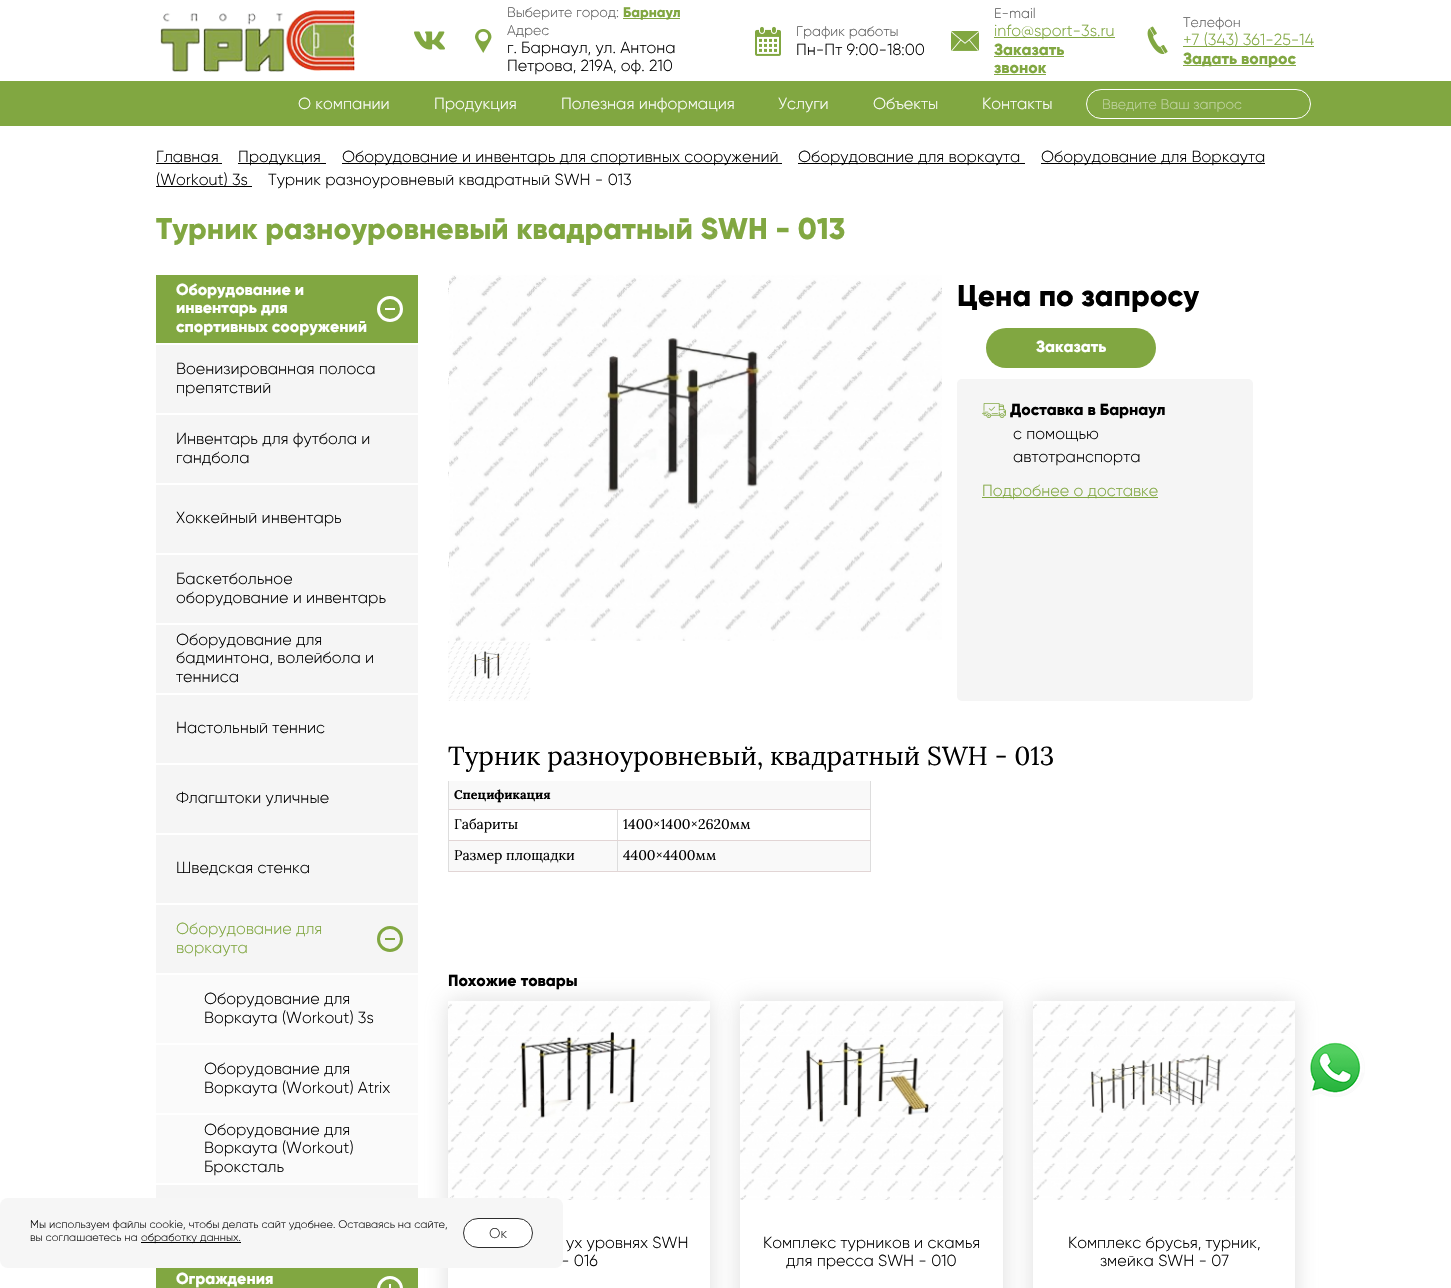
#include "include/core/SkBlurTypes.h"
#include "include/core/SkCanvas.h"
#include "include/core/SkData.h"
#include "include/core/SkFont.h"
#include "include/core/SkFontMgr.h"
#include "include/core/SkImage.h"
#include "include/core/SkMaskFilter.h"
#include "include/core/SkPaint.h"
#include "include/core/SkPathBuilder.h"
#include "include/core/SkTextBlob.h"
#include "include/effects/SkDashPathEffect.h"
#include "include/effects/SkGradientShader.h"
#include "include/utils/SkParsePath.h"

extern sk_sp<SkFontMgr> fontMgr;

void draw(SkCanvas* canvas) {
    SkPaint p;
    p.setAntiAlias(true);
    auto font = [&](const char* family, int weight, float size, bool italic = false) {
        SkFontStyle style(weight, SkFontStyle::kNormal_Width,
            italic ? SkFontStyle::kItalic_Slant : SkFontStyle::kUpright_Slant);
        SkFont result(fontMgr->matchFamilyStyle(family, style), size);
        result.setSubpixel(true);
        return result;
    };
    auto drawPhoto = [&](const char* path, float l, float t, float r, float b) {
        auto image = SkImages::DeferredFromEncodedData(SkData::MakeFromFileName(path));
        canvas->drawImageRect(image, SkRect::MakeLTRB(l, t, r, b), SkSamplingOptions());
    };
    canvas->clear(0xFFFFFFFF);
    drawPhoto("media/1.png", 160, 10, 355, 72);
    drawPhoto("media/2.png", 414, 31, 445, 50);
    drawPhoto("media/3.png", 475, 29, 492, 53);
    auto font1 = font("Gilroy", 300, 14);
    p.setColor(0xFF606060);
    canvas->drawString("Выберите город:", 507, 17, font1, p);
    p.setColor(0xFF81A741);
    canvas->drawRect(SkRect::MakeLTRB(623, 18, 680, 19), p);
    auto font2 = font("Gilroy", 800, 14);
    canvas->drawString("Барнаул", 623, 17, font2, p);
    p.setColor(0xFF606060);
    canvas->drawString("Адрес", 507, 35, font1, p);
    auto font3 = font("Gilroy", 300, 16);
    p.setColor(0xFF000000);
    canvas->drawString("г. Барнаул, ул. Антона", 507, 53, font3, p);
    canvas->drawString("Петрова, 219А, оф. 210", 507, 71, font3, p);
    drawPhoto("media/4.png", 755, 26, 781, 56);
    p.setColor(0xFF606060);
    canvas->drawString("График работы", 796, 36, font1, p);
    p.setColor(0xFF000000);
    canvas->drawString("Пн-Пт 9:00-18:00", 796, 55, font3, p);
    drawPhoto("media/5.png", 951, 31, 979, 51);
    p.setColor(0xFF606060);
    canvas->drawString("E-mail", 994, 18, font1, p);
    p.setColor(0xFF81A741);
    canvas->drawRect(SkRect::MakeLTRB(994, 37, 1115, 38), p);
    canvas->drawString("info@sport-3s.ru", 994, 36, font3, p);
    auto font4 = font("Gilroy", 800, 16);
    canvas->drawString("Заказать", 994, 55, font4, p);
    canvas->drawRect(SkRect::MakeLTRB(994, 56, 1064, 57), p);
    canvas->drawString("звонок", 994, 73, font4, p);
    canvas->drawRect(SkRect::MakeLTRB(994, 74, 1046, 75), p);
    drawPhoto("media/6.png", 1147, 26, 1168, 54);
    p.setColor(0xFF606060);
    canvas->drawString("Телефон", 1183, 27, font1, p);
    p.setColor(0xFF81A741);
    canvas->drawRect(SkRect::MakeLTRB(1183, 46, 1314, 47), p);
    canvas->drawString("+7 (343) 361-25-14", 1183, 45, font3, p);
    canvas->drawRect(SkRect::MakeLTRB(1183, 65, 1296, 66), p);
    canvas->drawString("Задать вопрос", 1183, 64, font4, p);
    canvas->drawRect(SkRect::MakeLTRB(0, 81, 1451, 126), p);
    p.setColor(0xFFFFFFFF);
    {
        const struct { const char* s; float x, y; } items[] = {
            {"О компании", 298, 109},
            {"Продукция", 434, 109},
            {"Полезная информация", 561, 109},
            {"Услуги", 778, 109},
            {"Объекты", 873, 109},
            {"Контакты", 982, 109},
        };
        for (auto [s, x, y] : items) {
            canvas->drawString(s, x, y, font3, p);
        }
    }
    p.setStyle(SkPaint::kStroke_Style);
    p.setStrokeWidth(1);
    canvas->drawRoundRect(SkRect::MakeLTRB(1086.5f, 89.5f, 1310.5f, 118.5f), 14.5f, 14.5f, p);
    p.setStyle(SkPaint::kFill_Style);
    p.setColor(0xFFC0D3A0);
    canvas->drawString("Введите Ваш запрос", 1102, 109, font1, p);
    p.setColor(0xFF000000);
    canvas->drawString("Главная", 156, 162, font3, p);
    canvas->drawRect(SkRect::MakeLTRB(156, 163, 222, 164), p);
    canvas->drawRect(SkRect::MakeLTRB(238, 163, 326, 164), p);
    canvas->drawString("Продукция", 238, 162, font3, p);
    canvas->drawRect(SkRect::MakeLTRB(342, 163, 782, 164), p);
    canvas->drawString("Оборудование и инвентарь для спортивных сооружений", 342, 162, font3, p);
    canvas->drawRect(SkRect::MakeLTRB(798, 163, 1025, 164), p);
    canvas->drawString("Оборудование для воркаута", 798, 162, font3, p);
    canvas->drawRect(SkRect::MakeLTRB(1041, 163, 1265, 164), p);
    canvas->drawString("Оборудование для Воркаута", 1041, 162, font3, p);
    canvas->drawRect(SkRect::MakeLTRB(156, 186, 252, 187), p);
    canvas->drawString("(Workout) 3s", 156, 185, font3, p);
    canvas->drawString("Турник разноуровневый квадратный SWH - 013", 268, 185, font3, p);
    auto font5 = font("Gilroy", 800, 30);
    p.setColor(0xFF81A741);
    canvas->drawString("Турник разноуровневый квадратный SWH - 013", 156, 239, font5, p);
    canvas->drawRect(SkRect::MakeLTRB(156, 275, 418, 343), p);
    p.setColor(0xFFFFFFFF);
    {
        const struct { const char* s; float x, y; } items[] = {
            {"Оборудование и", 176, 295},
            {"инвентарь для", 176, 313},
            {"спортивных сооружений", 176, 332},
        };
        for (auto [s, x, y] : items) {
            canvas->drawString(s, x, y, font4, p);
        }
    }
    p.setStyle(SkPaint::kStroke_Style);
    p.setStrokeWidth(3);
    canvas->drawCircle(390, 309, 11.5f, p);
    p.setStyle(SkPaint::kFill_Style);
    canvas->drawRect(SkRect::MakeLTRB(385, 308, 395, 310), p);
    p.setColor(0xFFF5F5F5);
    canvas->drawRect(SkRect::MakeLTRB(156, 345, 418, 413), p);
    p.setColor(0xFF000000);
    canvas->drawString("Военизированная полоса", 176, 374, font3, p);
    canvas->drawString("препятствий", 176, 393, font3, p);
    p.setColor(0xFFF5F5F5);
    canvas->drawRect(SkRect::MakeLTRB(156, 415, 418, 483), p);
    p.setColor(0xFF000000);
    canvas->drawString("Инвентарь для футбола и", 176, 444, font3, p);
    canvas->drawString("гандбола", 176, 463, font3, p);
    p.setColor(0xFFF5F5F5);
    canvas->drawRect(SkRect::MakeLTRB(156, 485, 418, 553), p);
    p.setColor(0xFF000000);
    canvas->drawString("Хоккейный инвентарь", 176, 523, font3, p);
    p.setColor(0xFFF5F5F5);
    canvas->drawRect(SkRect::MakeLTRB(156, 555, 418, 623), p);
    p.setColor(0xFF000000);
    canvas->drawString("Баскетбольное", 176, 584, font3, p);
    canvas->drawString("оборудование и инвентарь", 176, 603, font3, p);
    p.setColor(0xFFF5F5F5);
    canvas->drawRect(SkRect::MakeLTRB(156, 625, 418, 693), p);
    p.setColor(0xFF000000);
    {
        const struct { const char* s; float x, y; } items[] = {
            {"Оборудование для", 176, 645},
            {"бадминтона, волейбола и", 176, 663},
            {"тенниса", 176, 682},
        };
        for (auto [s, x, y] : items) {
            canvas->drawString(s, x, y, font3, p);
        }
    }
    p.setColor(0xFFF5F5F5);
    canvas->drawRect(SkRect::MakeLTRB(156, 695, 418, 763), p);
    p.setColor(0xFF000000);
    canvas->drawString("Настольный теннис", 176, 733, font3, p);
    p.setColor(0xFFF5F5F5);
    canvas->drawRect(SkRect::MakeLTRB(156, 765, 418, 833), p);
    p.setColor(0xFF000000);
    canvas->drawString("Флагштоки уличные", 176, 803, font3, p);
    p.setColor(0xFFF5F5F5);
    canvas->drawRect(SkRect::MakeLTRB(156, 835, 418, 903), p);
    p.setColor(0xFF000000);
    canvas->drawString("Шведская стенка", 176, 873, font3, p);
    p.setColor(0xFFF5F5F5);
    canvas->drawRect(SkRect::MakeLTRB(156, 905, 418, 973), p);
    p.setColor(0xFF81A741);
    canvas->drawString("Оборудование для", 176, 934, font3, p);
    canvas->drawString("воркаута", 176, 953, font3, p);
    p.setStyle(SkPaint::kStroke_Style);
    canvas->drawCircle(390, 939, 11.5f, p);
    p.setStyle(SkPaint::kFill_Style);
    canvas->drawRect(SkRect::MakeLTRB(385, 938, 395, 940), p);
    p.setColor(0xFFFAFAFA);
    canvas->drawRect(SkRect::MakeLTRB(156, 975, 418, 1043), p);
    p.setColor(0xFF000000);
    canvas->drawString("Оборудование для", 204, 1004, font3, p);
    canvas->drawString("Воркаута (Workout) 3s", 204, 1023, font3, p);
    p.setColor(0xFFFAFAFA);
    canvas->drawRect(SkRect::MakeLTRB(156, 1045, 418, 1113), p);
    p.setColor(0xFF000000);
    canvas->drawString("Оборудование для", 204, 1074, font3, p);
    canvas->drawString("Воркаута (Workout) Atrix", 204, 1093, font3, p);
    p.setColor(0xFFFAFAFA);
    canvas->drawRect(SkRect::MakeLTRB(156, 1115, 418, 1183), p);
    p.setColor(0xFF000000);
    {
        const struct { const char* s; float x, y; } items[] = {
            {"Оборудование для", 204, 1135},
            {"Воркаута (Workout)", 204, 1153},
            {"Броксталь", 204, 1172},
        };
        for (auto [s, x, y] : items) {
            canvas->drawString(s, x, y, font3, p);
        }
    }
    p.setColor(0xFFF5F5F5);
    canvas->drawRect(SkRect::MakeLTRB(156, 1185, 418, 1198), p);
    canvas->save();
    canvas->clipPath(SkPathBuilder(SkPathFillType::kEvenOdd).moveTo(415, 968).lineTo(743, 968).lineTo(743, 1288).lineTo(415, 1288).close().moveTo(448, 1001).lineTo(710, 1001).lineTo(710, 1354).lineTo(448, 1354).close().detach(), true);
    p.setColor(0x66AAAAAA);
    p.setMaskFilter(SkMaskFilter::MakeBlur(kNormal_SkBlurStyle, 10.5f));
    canvas->drawRect(SkRect::MakeLTRB(448, 1001, 710, 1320), p);
    p.setMaskFilter(nullptr);
    canvas->restore();
    p.setColor(0xFF81A741);
    canvas->drawRect(SkRect::MakeLTRB(156, 1268, 418, 1288), p);
    p.setColor(0xFFFFFFFF);
    canvas->drawString("Ограждения", 176, 1284, font4, p);
    p.setStyle(SkPaint::kStroke_Style);
    canvas->drawCircle(390, 1289, 11.5f, p);
    p.setStyle(SkPaint::kFill_Style);
    canvas->drawRect(SkRect::MakeLTRB(389, 1284, 391, 1288), p);
    drawPhoto("media/7.png", 448, 287, 449, 568);
    drawPhoto("media/8.png", 449, 275, 942, 641);
    drawPhoto("media/9.png", 448, 641, 531, 701);
    p.setColor(0xFF000000);
    canvas->drawString("Цена по запросу", 957, 306, font5, p);
    p.setColor(0xFF81A741);
    canvas->drawRoundRect(SkRect::MakeLTRB(986, 328, 1156, 368), 20, 20, p);
    p.setColor(0xFFFFFFFF);
    canvas->drawString("Заказать", 1036, 352, font4, p);
    p.setColor(0xFFF5F5F5);
    canvas->drawRoundRect(SkRect::MakeLTRB(957, 379, 1253, 701), 5, 5, p);
    drawPhoto("media/10.png", 982, 403, 1006, 418);
    p.setColor(0xFF000000);
    canvas->drawString("Доставка в Барнаул", 1010, 415, font4, p);
    canvas->drawString("с помощью", 1013, 439, font3, p);
    canvas->drawString("автотранспорта", 1013, 462, font3, p);
    p.setColor(0xFF81A741);
    canvas->drawRect(SkRect::MakeLTRB(982, 497, 1158, 498), p);
    canvas->drawString("Подробнее о доставке", 982, 496, font3, p);
    auto font6 = font("Lora", 400, 26);
    p.setColor(0xFF000000);
    canvas->drawString("Турник разноуровневый, квадратный SWH - 013", 448, 765, font6, p);
    {
        const struct { float l, t, r, b; SkColor color; } items[] = {
            {449, 781, 870, 809, 0xFFF9F9F9},
            {870, 781, 871, 872, 0xFFDDDDDD},
            {449, 841, 870, 871, 0xFFF9F9F9},
            {617, 871, 871, 872, 0xFFE2D5D5},
            {617, 840, 618, 872, 0xFFDDDDDD},
            {617, 840, 871, 841, 0xFFE2D5D5},
            {617, 809, 618, 841, 0xFFDDDDDD},
            {448, 871, 618, 872, 0xFFE2D5D5},
            {448, 840, 449, 872, 0xFFDDDDDD},
            {448, 840, 618, 841, 0xFFE2D5D5},
            {448, 809, 449, 841, 0xFFDDDDDD},
            {448, 809, 871, 810, 0xFFE2D5D5},
            {448, 781, 449, 810, 0xFFDDDDDD},
        };
        for (auto [l, t, r, b, color] : items) {
            p.setColor(color);
            canvas->drawRect(SkRect::MakeLTRB(l, t, r, b), p);
        }
    }
    auto font7 = font("Lora", 700, 12.5f);
    p.setColor(0xFF000000);
    canvas->drawString("Спецификация", 454, 799, font7, p);
    auto font8 = font("Lora", 400, 14);
    {
        const struct { const char* s; float x, y; } items[] = {
            {"Габариты", 454, 829},
            {"1400×1400×2620мм", 623, 829},
            {"Размер площадки", 454, 860},
            {"4400×4400мм", 623, 860},
        };
        for (auto [s, x, y] : items) {
            canvas->drawString(s, x, y, font8, p);
        }
    }
    canvas->drawString("Похожие товары", 448, 986, font4, p);
    drawPhoto("media/11.png", 448, 1001, 710, 1200);
    canvas->drawString("ух уровнях SWH", 566, 1248, font3, p);
    canvas->drawString("- 016", 561, 1266, font3, p);
    canvas->save();
    canvas->clipPath(SkPathBuilder(SkPathFillType::kEvenOdd).moveTo(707, 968).lineTo(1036, 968).lineTo(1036, 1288).lineTo(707, 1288).close().moveTo(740, 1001).lineTo(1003, 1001).lineTo(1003, 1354).lineTo(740, 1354).close().detach(), true);
    p.setColor(0x66AAAAAA);
    p.setMaskFilter(SkMaskFilter::MakeBlur(kNormal_SkBlurStyle, 10.5f));
    canvas->drawRect(SkRect::MakeLTRB(740, 1001, 1003, 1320), p);
    p.setMaskFilter(nullptr);
    canvas->restore();
    drawPhoto("media/12.png", 740, 1001, 1003, 1200);
    p.setColor(0xFF000000);
    canvas->drawString("Комплекс турников и скамья", 763, 1248, font3, p);
    canvas->drawString("для пресса SWH - 010", 786, 1266, font3, p);
    canvas->save();
    canvas->clipPath(SkPathBuilder(SkPathFillType::kEvenOdd).moveTo(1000, 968).lineTo(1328, 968).lineTo(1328, 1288).lineTo(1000, 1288).close().moveTo(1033, 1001).lineTo(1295, 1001).lineTo(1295, 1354).lineTo(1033, 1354).close().detach(), true);
    p.setColor(0x66AAAAAA);
    p.setMaskFilter(SkMaskFilter::MakeBlur(kNormal_SkBlurStyle, 10.5f));
    canvas->drawRect(SkRect::MakeLTRB(1033, 1001, 1295, 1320), p);
    p.setMaskFilter(nullptr);
    canvas->restore();
    drawPhoto("media/13.png", 1033, 1001, 1295, 1200);
    p.setColor(0xFF000000);
    canvas->drawString("Комплекс брусья, турник,", 1068, 1248, font3, p);
    canvas->drawString("змейка SWH - 07", 1100, 1266, font3, p);
    drawPhoto("media/14.png", 1310, 1042, 1365, 1097);
    p.setColor(0xFFF6F6F6);
    canvas->drawRoundRect(SkRect::MakeLTRB(0, 1198, 563, 1268), 8, 8, p);
    auto font9 = font("Gilroy", 300, 11);
    p.setColor(0xFF000000);
    canvas->drawString("Мы используем файлы cookie, чтобы делать сайт удобнее. Оставаясь на сайте,", 30, 1228, font9, p);
    canvas->drawString("вы соглашаетесь на", 30, 1241, font9, p);
    canvas->drawRect(SkRect::MakeLTRB(141, 1242, 241, 1243), p);
    canvas->drawString("обработку данных.", 141, 1241, font9, p);
    p.setColor(0xFFFFFFFF);
    canvas->drawRoundRect(SkRect::MakeLTRB(463.5f, 1218.5f, 532.5f, 1247.5f), 14.5f, 14.5f, p);
    p.setStyle(SkPaint::kStroke_Style);
    p.setStrokeWidth(1);
    p.setColor(0xFF2D2D2D);
    canvas->drawRoundRect(SkRect::MakeLTRB(463.5f, 1218.5f, 532.5f, 1247.5f), 14.5f, 14.5f, p);
    p.setStyle(SkPaint::kFill_Style);
    canvas->drawString("Ок", 489, 1238, font1, p);
}
